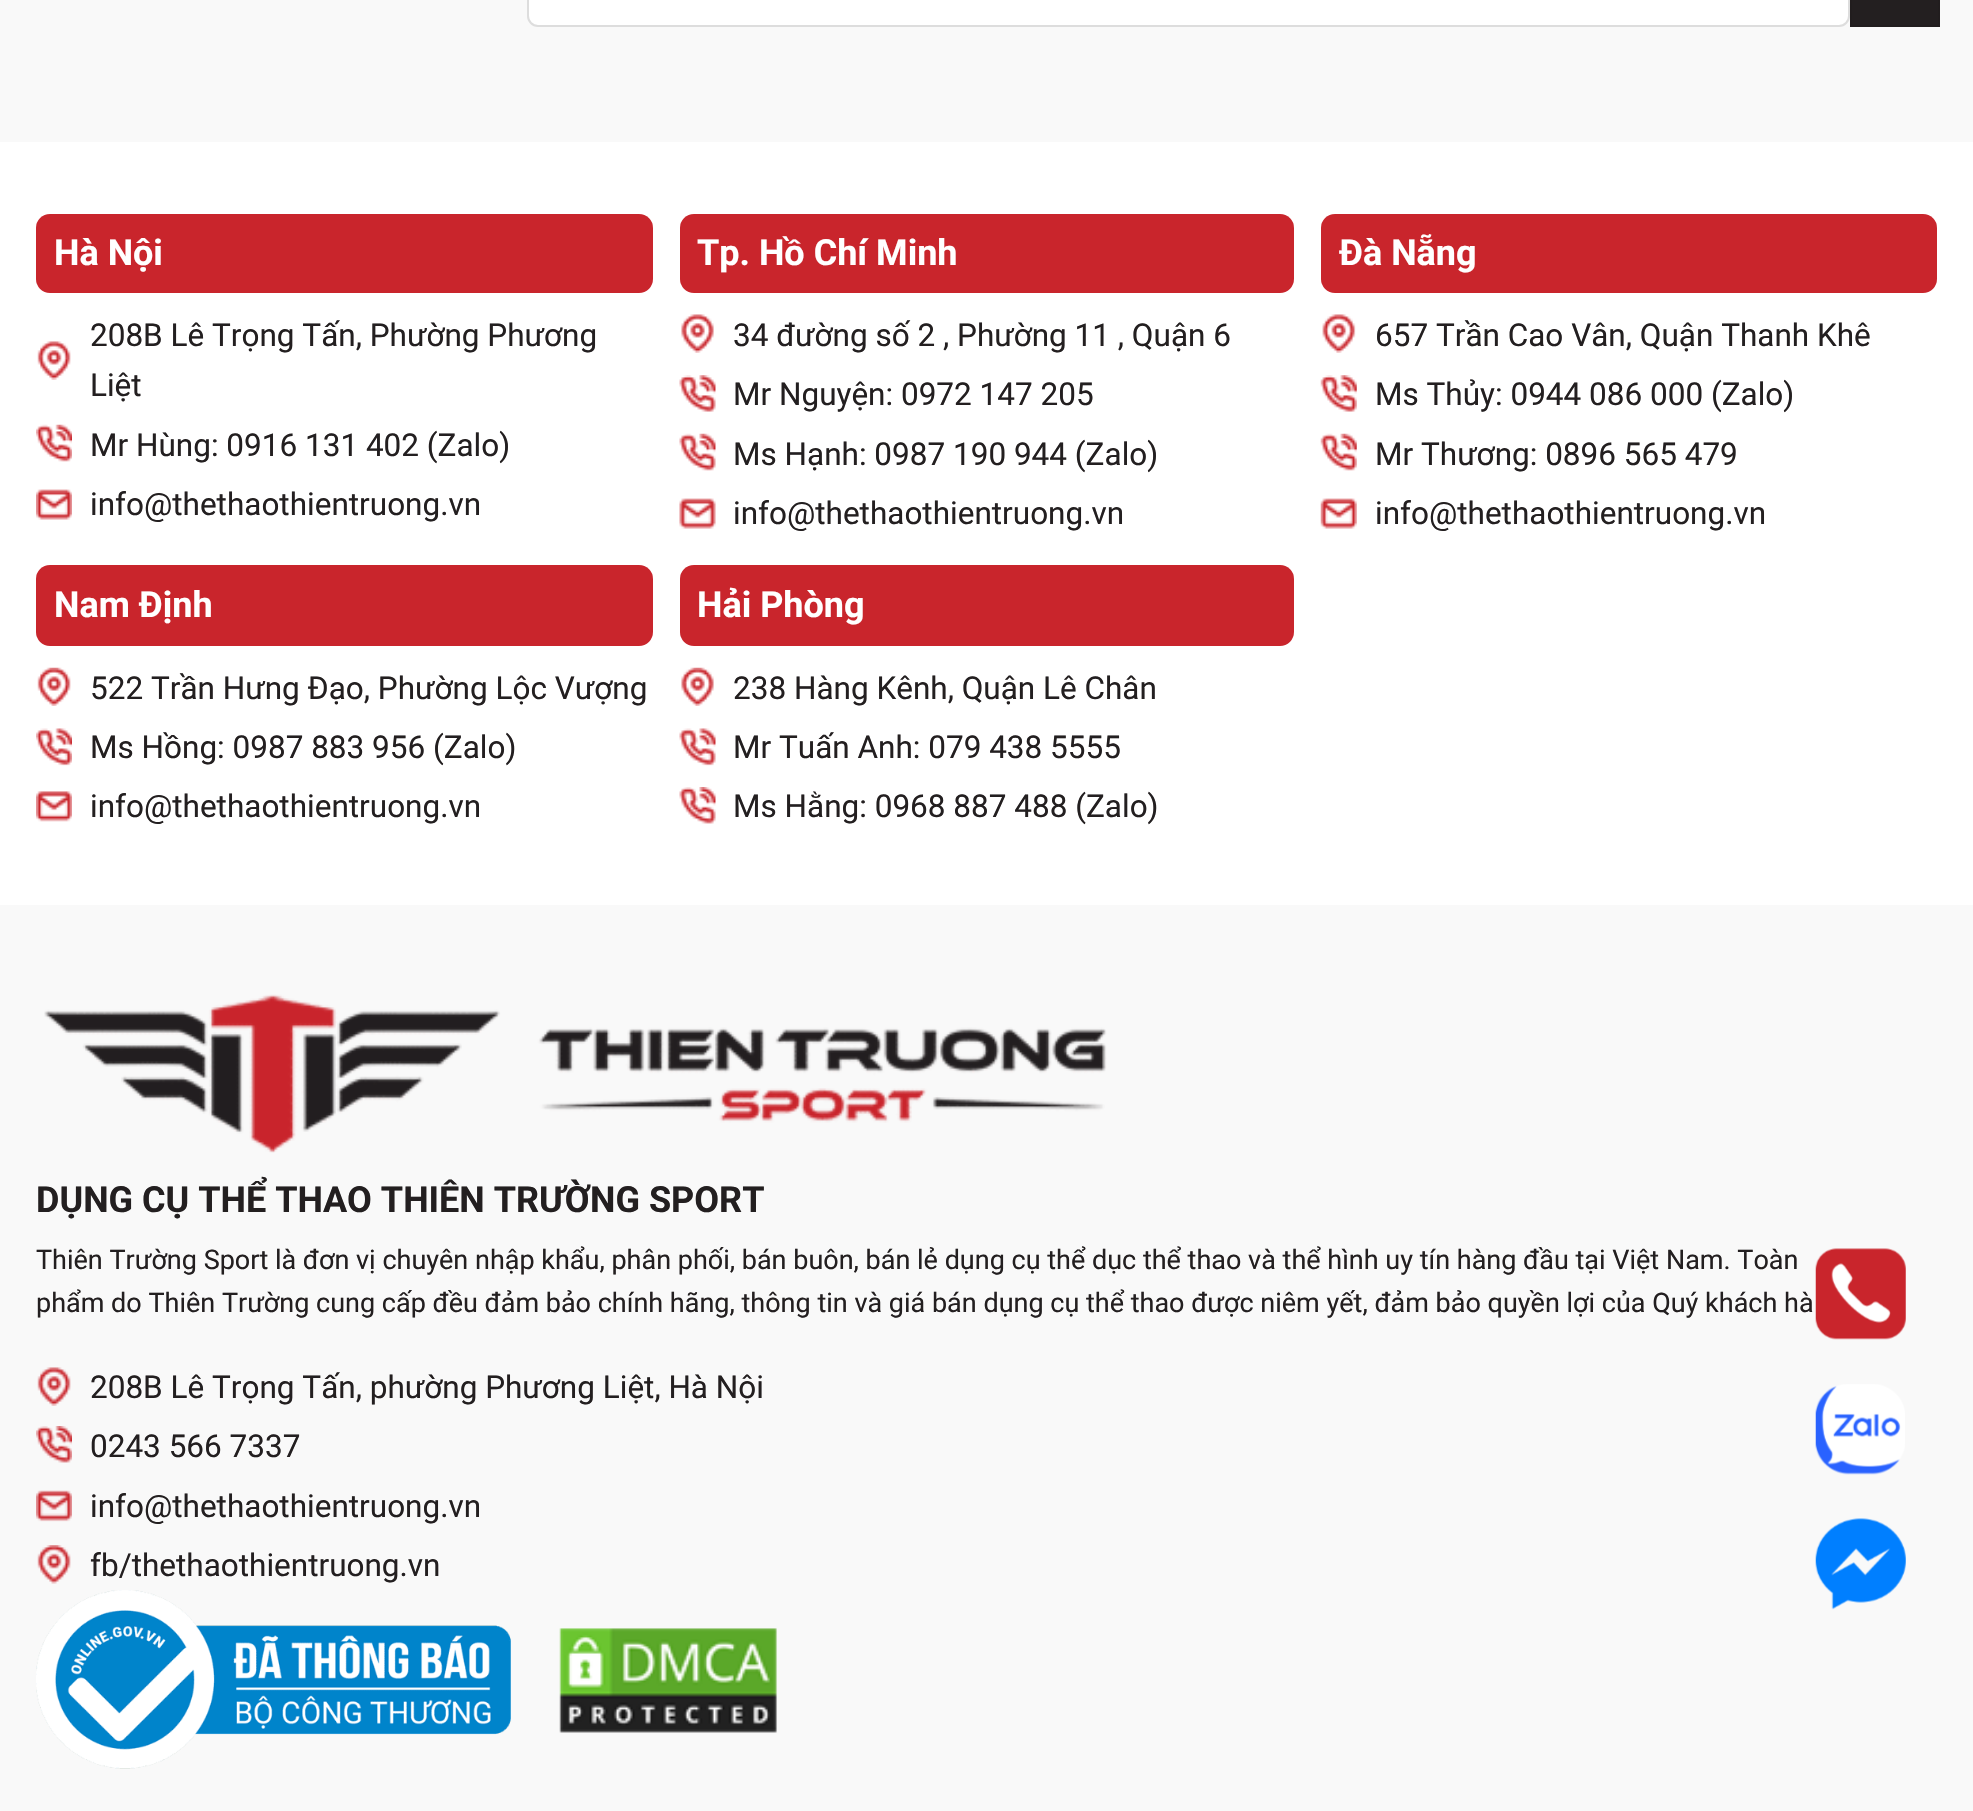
#include "include/core/SkBlurTypes.h"
#include "include/core/SkCanvas.h"
#include "include/core/SkData.h"
#include "include/core/SkFont.h"
#include "include/core/SkFontMgr.h"
#include "include/core/SkImage.h"
#include "include/core/SkMaskFilter.h"
#include "include/core/SkPaint.h"
#include "include/core/SkPathBuilder.h"
#include "include/core/SkTextBlob.h"
#include "include/effects/SkDashPathEffect.h"
#include "include/effects/SkGradientShader.h"
#include "include/utils/SkParsePath.h"

extern sk_sp<SkFontMgr> fontMgr;

void draw(SkCanvas* canvas) {
    SkPaint p;
    p.setAntiAlias(true);
    auto font = [&](const char* family, int weight, float size, bool italic = false) {
        SkFontStyle style(weight, SkFontStyle::kNormal_Width,
            italic ? SkFontStyle::kItalic_Slant : SkFontStyle::kUpright_Slant);
        SkFont result(fontMgr->matchFamilyStyle(family, style), size);
        result.setSubpixel(true);
        return result;
    };
    auto drawPhoto = [&](const char* path, float l, float t, float r, float b) {
        auto image = SkImages::DeferredFromEncodedData(SkData::MakeFromFileName(path));
        canvas->drawImageRect(image, SkRect::MakeLTRB(l, t, r, b), SkSamplingOptions());
    };
    canvas->clear(0xFFFFFFFF);
    p.setColor(0xFFF9F9F9);
    canvas->drawRect(SkRect::MakeLTRB(0, 0, 1973, 142), p);
    p.setColor(0xFFFFFFFF);
    canvas->drawRoundRect(SkRect::MakeLTRB(528, -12, 1849, 26), 10, 10, p);
    p.setStyle(SkPaint::kStroke_Style);
    p.setStrokeWidth(2);
    p.setColor(0xFFDDDDDD);
    canvas->drawRoundRect(SkRect::MakeLTRB(528, -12, 1849, 26), 10, 10, p);
    p.setStyle(SkPaint::kFill_Style);
    p.setColor(0xFF231F20);
    canvas->drawRect(SkRect::MakeLTRB(1851, -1, 1939, 26), p);
    p.setStyle(SkPaint::kStroke_Style);
    p.setColor(0xFF211D1E);
    canvas->drawRect(SkRect::MakeLTRB(1851, -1, 1939, 26), p);
    p.setStyle(SkPaint::kFill_Style);
    p.setColor(0xFFC9252C);
    canvas->drawRoundRect(SkRect::MakeLTRB(36, 214, 653, 293), 14, 14, p);
    auto font1 = font("Roboto", 700, 36);
    p.setColor(0xFFFFFFFF);
    canvas->drawString("Hà Nội", 54, 265, font1, p);
    drawPhoto("media/1.png", 37, 341, 71, 380);
    auto font2 = font("Roboto", 400, 31.5f);
    p.setColor(0xFF231F20);
    canvas->drawString("208B Lê Trọng Tấn, Phường Phương", 90, 346, font2, p);
    canvas->drawString("Liệt", 90, 396, font2, p);
    drawPhoto("media/2.png", 36, 424, 72, 462);
    canvas->drawString("Mr Hùng: 0916 131 402 (Zalo)", 90, 456, font2, p);
    drawPhoto("media/3.png", 36, 489, 72, 520);
    canvas->drawString("info@thethaothientruong.vn", 90, 515, font2, p);
    p.setColor(0xFFC9252C);
    canvas->drawRoundRect(SkRect::MakeLTRB(680, 214, 1294, 293), 14, 14, p);
    p.setColor(0xFFFFFFFF);
    canvas->drawString("Tp. Hồ Chí Minh", 697, 265, font1, p);
    drawPhoto("media/4.png", 681, 314, 714, 353);
    p.setColor(0xFF231F20);
    canvas->drawString("34 đường số 2 , Phường 11 , Quận 6", 733, 346, font2, p);
    drawPhoto("media/5.png", 679, 375, 716, 412);
    canvas->drawString("Mr Nguyện: 0972 147 205", 733, 405, font2, p);
    drawPhoto("media/6.png", 679, 433, 716, 471);
    canvas->drawString("Ms Hạnh: 0987 190 944 (Zalo)", 733, 465, font2, p);
    drawPhoto("media/7.png", 679, 498, 716, 529);
    canvas->drawString("info@thethaothientruong.vn", 733, 524, font2, p);
    p.setColor(0xFFC9252C);
    canvas->drawRoundRect(SkRect::MakeLTRB(1321, 214, 1937, 293), 14, 14, p);
    p.setColor(0xFFFFFFFF);
    canvas->drawString("Đà Nẵng", 1339, 265, font1, p);
    drawPhoto("media/8.png", 1322, 314, 1356, 353);
    p.setColor(0xFF231F20);
    canvas->drawString("657 Trần Cao Vân, Quận Thanh Khê", 1375, 346, font2, p);
    drawPhoto("media/9.png", 1320, 375, 1357, 412);
    canvas->drawString("Ms Thủy: 0944 086 000 (Zalo)", 1375, 405, font2, p);
    drawPhoto("media/10.png", 1320, 433, 1357, 471);
    canvas->drawString("Mr Thương: 0896 565 479", 1375, 465, font2, p);
    drawPhoto("media/11.png", 1320, 498, 1357, 529);
    canvas->drawString("info@thethaothientruong.vn", 1375, 524, font2, p);
    p.setColor(0xFFC9252C);
    canvas->drawRoundRect(SkRect::MakeLTRB(36, 565, 653, 646), 14, 14, p);
    p.setColor(0xFFFFFFFF);
    canvas->drawString("Nam Định", 54, 617, font1, p);
    drawPhoto("media/12.png", 37, 667, 71, 706);
    p.setColor(0xFF231F20);
    canvas->drawString("522 Trần Hưng Đạo, Phường Lộc Vượng", 90, 699, font2, p);
    drawPhoto("media/13.png", 36, 728, 72, 766);
    canvas->drawString("Ms Hồng: 0987 883 956 (Zalo)", 90, 758, font2, p);
    drawPhoto("media/14.png", 36, 791, 72, 822);
    canvas->drawString("info@thethaothientruong.vn", 90, 817, font2, p);
    p.setColor(0xFFC9252C);
    canvas->drawRoundRect(SkRect::MakeLTRB(680, 565, 1294, 646), 14, 14, p);
    p.setColor(0xFFFFFFFF);
    canvas->drawString("Hải Phòng", 697, 617, font1, p);
    drawPhoto("media/15.png", 681, 667, 714, 706);
    p.setColor(0xFF231F20);
    canvas->drawString("238 Hàng Kênh, Quận Lê Chân", 733, 699, font2, p);
    drawPhoto("media/16.png", 679, 728, 716, 766);
    canvas->drawString("Mr Tuấn Anh: 079 438 5555", 733, 758, font2, p);
    drawPhoto("media/17.png", 679, 787, 716, 824);
    canvas->drawString("Ms Hằng: 0968 887 488 (Zalo)", 733, 817, font2, p);
    p.setColor(0xFFF9F9F9);
    canvas->drawRect(SkRect::MakeLTRB(0, 905, 1973, 1811), p);
    drawPhoto("media/18.png", 44, 994, 1107, 1153);
    p.setColor(0xFF231F20);
    canvas->drawString("DỤNG CỤ THỂ THAO THIÊN TRƯỜNG SPORT", 36, 1212, font1, p);
    auto font3 = font("Roboto", 400, 27);
    canvas->drawString("Thiên Trường Sport là đơn vị chuyên nhập khẩu, phân phối, bán buôn, bán lẻ dụng cụ thể dục thể thao và thể hình uy tín hàng đầu tại Việt Nam. Toàn", 36, 1269, font3, p);
    canvas->drawString("phẩm do Thiên Trường cung cấp đều đảm bảo chính hãng, thông tin và giá bán dụng cụ thể thao được niêm yết, đảm bảo quyền lợi của Quý khách hà", 36, 1312, font3, p);
    drawPhoto("media/19.png", 37, 1367, 71, 1406);
    canvas->drawString("208B Lê Trọng Tấn, phường Phương Liệt, Hà Nội", 90, 1398, font2, p);
    drawPhoto("media/20.png", 36, 1426, 72, 1463);
    canvas->drawString("0243 566 7337", 90, 1457, font2, p);
    drawPhoto("media/21.png", 36, 1490, 72, 1522);
    canvas->drawString("info@thethaothientruong.vn", 90, 1517, font2, p);
    drawPhoto("media/22.png", 37, 1545, 71, 1584);
    canvas->drawString("fb/thethaothientruong.vn", 90, 1576, font2, p);
    drawPhoto("media/23.png", 36, 1590, 511, 1769);
    drawPhoto("media/24.png", 559, 1628, 777, 1733);
    drawPhoto("media/25.png", 1815, 1248, 1906, 1340);
    drawPhoto("media/26.png", 1815, 1384, 1905, 1475);
    drawPhoto("media/27.png", 1815, 1518, 1906, 1610);
}
